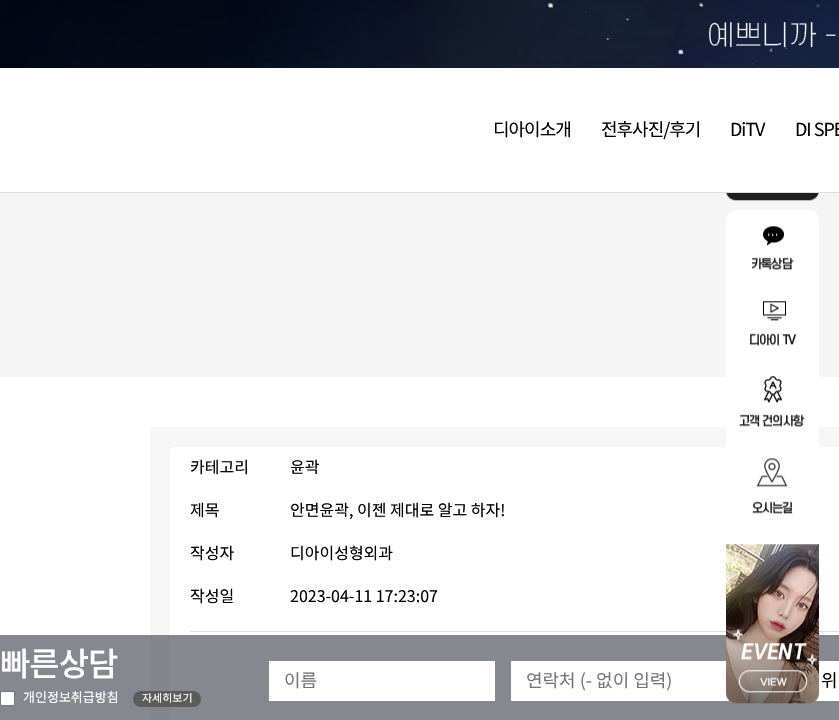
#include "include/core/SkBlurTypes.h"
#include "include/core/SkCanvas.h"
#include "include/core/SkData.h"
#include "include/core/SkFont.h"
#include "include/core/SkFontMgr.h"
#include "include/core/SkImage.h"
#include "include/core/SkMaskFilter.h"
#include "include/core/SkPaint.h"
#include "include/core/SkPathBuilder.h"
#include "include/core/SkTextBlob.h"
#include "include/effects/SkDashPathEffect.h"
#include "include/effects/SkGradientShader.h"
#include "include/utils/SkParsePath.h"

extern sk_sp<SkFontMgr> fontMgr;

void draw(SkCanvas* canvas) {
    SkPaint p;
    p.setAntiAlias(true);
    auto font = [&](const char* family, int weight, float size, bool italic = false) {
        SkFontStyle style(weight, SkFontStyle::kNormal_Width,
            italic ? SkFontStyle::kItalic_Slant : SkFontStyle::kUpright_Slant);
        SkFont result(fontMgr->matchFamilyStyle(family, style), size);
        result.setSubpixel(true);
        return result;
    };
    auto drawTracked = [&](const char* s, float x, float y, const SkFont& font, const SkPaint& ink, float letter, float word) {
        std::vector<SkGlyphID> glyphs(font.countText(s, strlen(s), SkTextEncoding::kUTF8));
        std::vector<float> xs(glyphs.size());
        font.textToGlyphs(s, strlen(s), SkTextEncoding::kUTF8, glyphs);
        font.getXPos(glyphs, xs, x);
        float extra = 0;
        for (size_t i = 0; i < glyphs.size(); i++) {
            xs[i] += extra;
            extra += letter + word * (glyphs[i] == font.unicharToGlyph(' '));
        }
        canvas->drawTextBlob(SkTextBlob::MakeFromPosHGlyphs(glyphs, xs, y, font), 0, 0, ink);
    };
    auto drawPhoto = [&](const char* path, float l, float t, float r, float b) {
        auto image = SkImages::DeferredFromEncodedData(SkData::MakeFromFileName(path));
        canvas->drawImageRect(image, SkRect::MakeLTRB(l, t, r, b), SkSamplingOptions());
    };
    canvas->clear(0xFFFFFFFF);
    p.setColor(0xFF85888E);
    canvas->drawRect(SkRect::MakeLTRB(0, 635, 150, 720), p);
    p.setColor(0xFFDEDEDE);
    canvas->drawRect(SkRect::MakeLTRB(0, 192, 839, 193), p);
    drawPhoto("media/1.png", 0, 0, 839, 68);
    auto font1 = font("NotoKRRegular", 400, 18);
    p.setColor(0xFF000000);
    {
        const struct { const char* s; float x, y; } items[] = {
            {"디아이소개", 493, 136},
            {"전후사진/후기", 601, 136},
            {"DiTV", 730, 136},
            {"DI SPE", 795, 136},
        };
        for (auto [s, x, y] : items) {
            drawTracked(s, x, y, font1, p, -1, 0);
        }
    }
    p.setColor(0xFFF5F5F5);
    canvas->drawRect(SkRect::MakeLTRB(0, 193, 839, 377), p);
    p.setColor(0xFFF6F6F6);
    canvas->drawPath(SkPathBuilder().moveTo(155, 427).lineTo(839, 427).lineTo(839, 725).lineTo(155, 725).cubicTo(152, 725, 150, 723, 150, 720).lineTo(150, 432).cubicTo(150, 429, 152, 427, 155, 427).close().detach(), p);
    p.setColor(0xFF83868C);
    canvas->drawRect(SkRect::MakeLTRB(150, 635, 170, 720), p);
    p.setColor(0xFFFFFFFF);
    canvas->drawPath(SkPathBuilder().moveTo(175, 447).lineTo(839, 447).lineTo(839, 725).lineTo(175, 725).cubicTo(172, 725, 170, 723, 170, 720).lineTo(170, 452).cubicTo(170, 449, 172, 447, 175, 447).close().detach(), p);
    p.setColor(0xFF85888E);
    canvas->drawRect(SkRect::MakeLTRB(170, 635, 839, 720), p);
    auto font2 = font("NotoKRRegular", 400, 16);
    p.setColor(0xFF000000);
    {
        const struct { const char* s; float x, y; } items[] = {
            {"카테고리", 190, 473},
            {"윤곽", 290, 473},
            {"제목", 190, 516},
            {"안면윤곽, 이젠 제대로 알고 하자!", 290, 516},
            {"작성자", 190, 559},
            {"디아이성형외과", 290, 559},
            {"작성일", 190, 602},
            {"2023-04-11 17:23:07", 290, 602},
        };
        for (auto [s, x, y] : items) {
            canvas->drawString(s, x, y, font2, p);
        }
    }
    p.setColor(0xFFDDDDDD);
    canvas->drawRect(SkRect::MakeLTRB(190, 631, 839, 632), p);
    drawPhoto("media/2.png", 726, 193, 819, 201);
    p.setColor(0xFFFFFFFF);
    canvas->drawRect(SkRect::MakeLTRB(511, 661, 730, 701), p);
    canvas->drawRect(SkRect::MakeLTRB(815, 661, 839, 701), p);
    canvas->drawRoundRect(SkRect::MakeLTRB(726, 210, 819, 703), 10, 10, p);
    drawPhoto("media/3.png", 752, 226, 794, 271);
    drawPhoto("media/4.png", 750, 301, 796, 346);
    drawPhoto("media/5.png", 739, 376, 805, 428);
    drawPhoto("media/6.png", 752, 458, 793, 514);
    drawPhoto("media/7.png", 726, 544, 819, 704);
    auto font3 = font("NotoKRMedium", 500, 33);
    drawTracked("빠른상담", 0, 676, font3, p, -1, 0);
    canvas->drawRoundRect(SkRect::MakeLTRB(0.5f, 691.5f, 14.5f, 705.5f), 1.5f, 1.5f, p);
    p.setStyle(SkPaint::kStroke_Style);
    p.setStrokeWidth(1);
    p.setColor(0xFF767676);
    canvas->drawRoundRect(SkRect::MakeLTRB(0.5f, 691.5f, 14.5f, 705.5f), 1.5f, 1.5f, p);
    auto font4 = font("NotoKRRegular", 400, 13);
    p.setStyle(SkPaint::kFill_Style);
    p.setColor(0xFFFFFFFF);
    canvas->drawString("개인정보취급방침", 23, 702, font4, p);
    p.setColor(0xFF5C5C5C);
    canvas->drawRoundRect(SkRect::MakeLTRB(133, 691, 201, 707), 8, 8, p);
    auto font5 = font("NotoKRRegular", 400, 11);
    p.setColor(0xFFFFFFFF);
    canvas->drawString("자세히보기", 142, 702, font5, p);
    canvas->drawRect(SkRect::MakeLTRB(269, 661, 495, 701), p);
    p.setColor(0xFF757575);
    canvas->drawString("이름", 284, 687, font1, p);
    canvas->drawString("연락처 (- 없이 입력)", 526, 687, font1, p);
    p.setColor(0xFF000000);
    canvas->drawString("위", 821, 687, font1, p);
}
